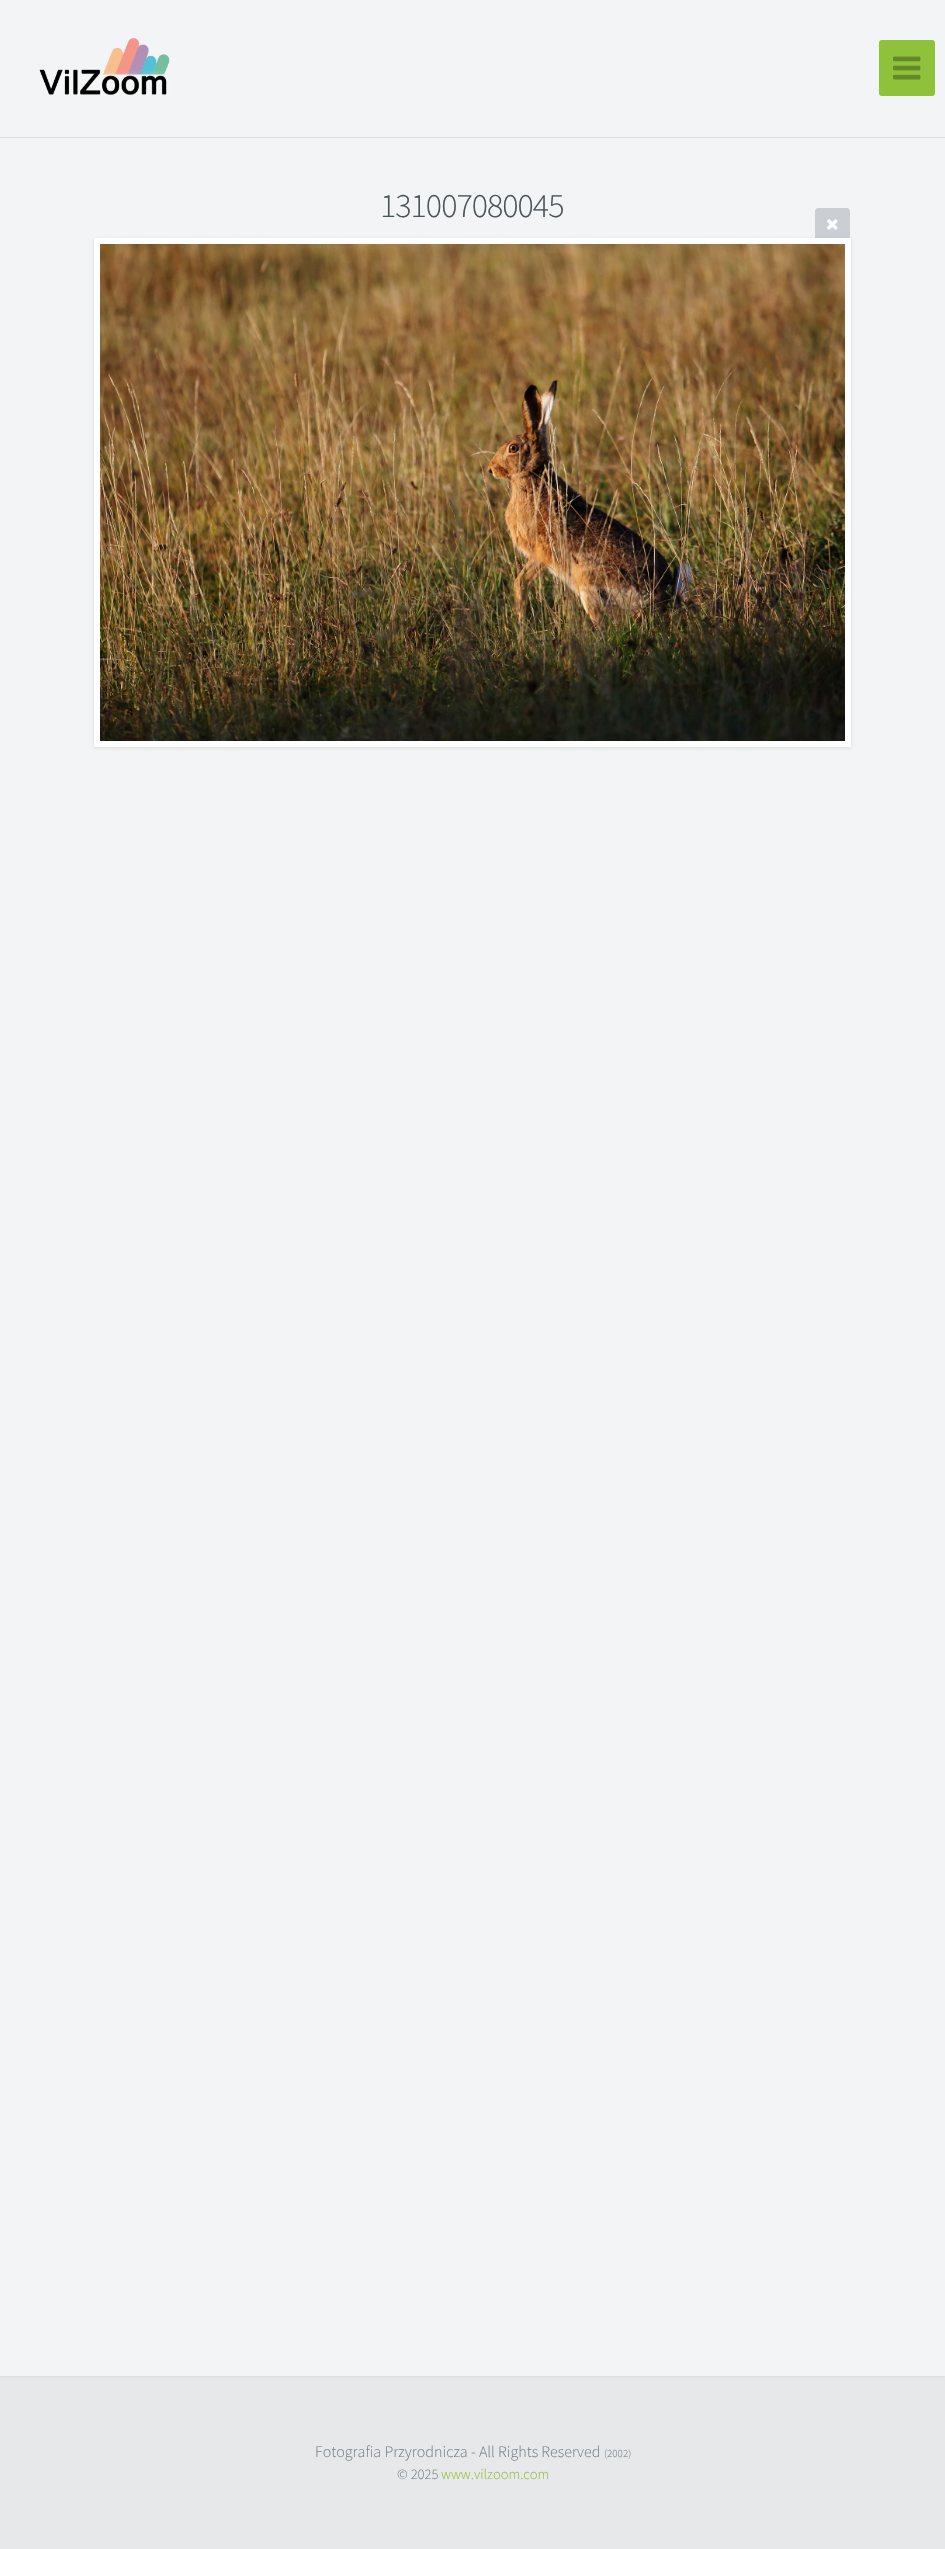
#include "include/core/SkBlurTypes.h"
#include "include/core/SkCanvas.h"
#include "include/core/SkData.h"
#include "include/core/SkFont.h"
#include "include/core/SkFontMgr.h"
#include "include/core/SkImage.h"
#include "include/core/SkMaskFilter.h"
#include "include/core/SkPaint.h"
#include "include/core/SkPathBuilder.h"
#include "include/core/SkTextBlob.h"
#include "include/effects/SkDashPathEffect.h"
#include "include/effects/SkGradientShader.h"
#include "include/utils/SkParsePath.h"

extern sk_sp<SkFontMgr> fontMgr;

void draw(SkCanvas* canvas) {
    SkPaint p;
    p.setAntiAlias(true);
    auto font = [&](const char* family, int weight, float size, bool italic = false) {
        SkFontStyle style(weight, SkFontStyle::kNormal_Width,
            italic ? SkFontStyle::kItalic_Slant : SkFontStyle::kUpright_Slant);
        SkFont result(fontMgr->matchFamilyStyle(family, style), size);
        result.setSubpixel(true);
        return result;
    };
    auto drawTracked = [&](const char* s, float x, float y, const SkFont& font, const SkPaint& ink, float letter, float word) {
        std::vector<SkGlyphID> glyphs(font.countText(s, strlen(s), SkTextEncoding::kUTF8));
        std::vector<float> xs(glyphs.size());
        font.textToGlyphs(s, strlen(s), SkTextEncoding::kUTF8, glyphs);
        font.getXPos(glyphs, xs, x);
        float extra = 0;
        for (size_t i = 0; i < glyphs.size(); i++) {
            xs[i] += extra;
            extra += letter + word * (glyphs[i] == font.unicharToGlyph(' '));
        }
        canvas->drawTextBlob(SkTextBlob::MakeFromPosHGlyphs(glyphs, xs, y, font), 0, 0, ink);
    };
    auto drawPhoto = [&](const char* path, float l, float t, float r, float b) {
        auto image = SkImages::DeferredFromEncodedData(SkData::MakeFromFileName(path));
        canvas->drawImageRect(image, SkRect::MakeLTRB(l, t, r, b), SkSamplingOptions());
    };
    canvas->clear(0xFFE6E8EA);
    p.setColor(0x1A000000);
    p.setMaskFilter(SkMaskFilter::MakeBlur(kNormal_SkBlurStyle, 1.5f));
    canvas->drawRect(SkRect::MakeLTRB(0, 0, 945, 2376), p);
    p.setMaskFilter(nullptr);
    p.setColor(0xFFF3F4F5);
    canvas->drawRect(SkRect::MakeLTRB(0, 0, 945, 2376), p);
    p.setColor(0xFF8FC13B);
    canvas->drawRoundRect(SkRect::MakeLTRB(879, 40, 935, 96), 3, 3, p);
    drawPhoto("media/1.png", 893, 56, 921, 80);
    p.setColor(0xFFD8DCDF);
    canvas->drawRect(SkRect::MakeLTRB(0, 137, 945, 138), p);
    drawPhoto("media/2.png", 39, 38, 170, 95);
    auto font1 = font("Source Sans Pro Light", 300, 34);
    p.setColor(0xFF48545A);
    drawTracked("131007080045", 380, 217, font1, p, -1, 0);
    p.setColor(0xFFCBCFD4);
    canvas->drawPath(SkPathBuilder().moveTo(818, 208).lineTo(847, 208).cubicTo(848.5f, 208, 850, 209.5f, 850, 211).lineTo(850, 238).lineTo(815, 238).lineTo(815, 211).cubicTo(815, 209.5f, 816.5f, 208, 818, 208).close().detach(), p);
    drawPhoto("media/3.png", 827, 219, 838, 230);
    p.setColor(0x1A000000);
    p.setMaskFilter(SkMaskFilter::MakeBlur(kNormal_SkBlurStyle, 1.5f));
    canvas->drawRect(SkRect::MakeLTRB(94, 239, 851, 748), p);
    p.setMaskFilter(nullptr);
    p.setColor(0xFFFFFFFF);
    canvas->drawRect(SkRect::MakeLTRB(94, 238, 851, 747), p);
    drawPhoto("media/4.png", 100, 244, 845, 741);
    auto font2 = font("Source Sans Pro Light", 300, 16);
    p.setColor(0xFF76828D);
    canvas->drawString("Fotografia Przyrodnicza - All Rights Reserved", 315, 2457, font2, p);
    auto font3 = font("Source Sans Pro Light", 300, 11);
    canvas->drawString("(2002)", 604, 2457, font3, p);
    auto font4 = font("Source Sans Pro Light", 300, 14.5f);
    canvas->drawString("© 2025", 397, 2479, font4, p);
    p.setColor(0xFF8FC13B);
    canvas->drawString("www.vilzoom.com", 441, 2479, font4, p);
}
